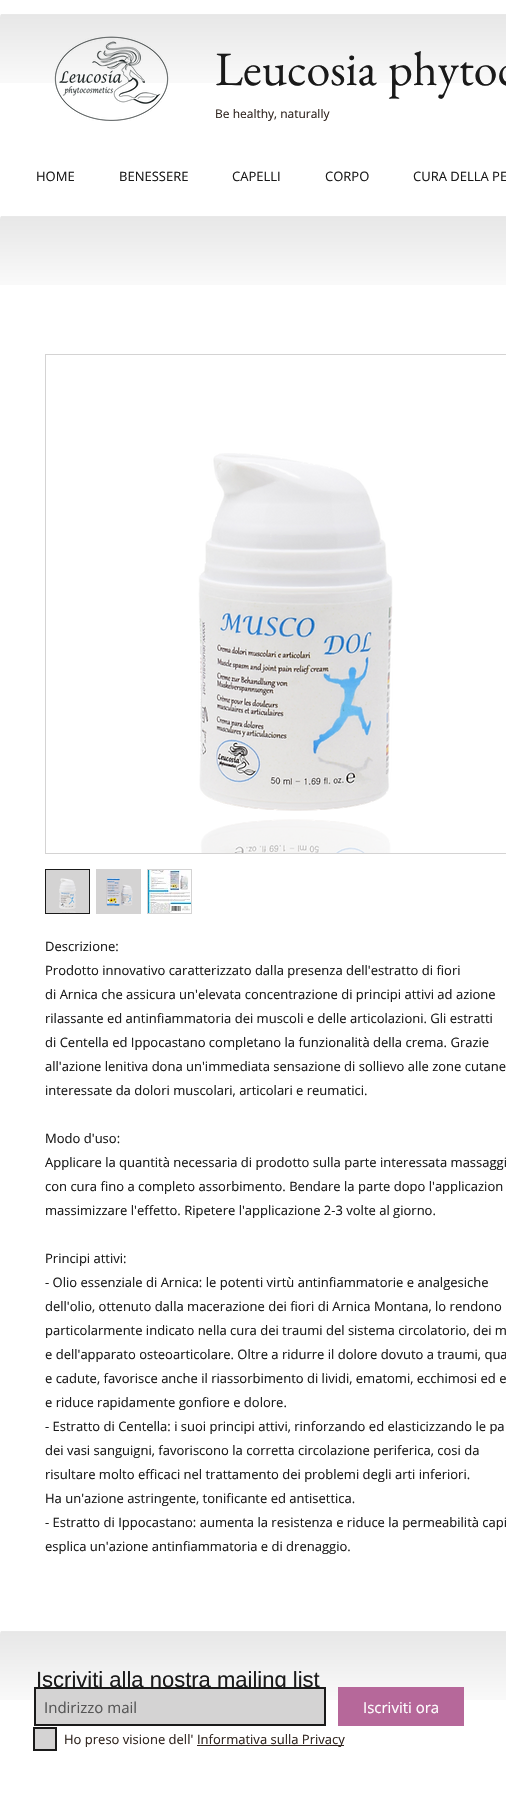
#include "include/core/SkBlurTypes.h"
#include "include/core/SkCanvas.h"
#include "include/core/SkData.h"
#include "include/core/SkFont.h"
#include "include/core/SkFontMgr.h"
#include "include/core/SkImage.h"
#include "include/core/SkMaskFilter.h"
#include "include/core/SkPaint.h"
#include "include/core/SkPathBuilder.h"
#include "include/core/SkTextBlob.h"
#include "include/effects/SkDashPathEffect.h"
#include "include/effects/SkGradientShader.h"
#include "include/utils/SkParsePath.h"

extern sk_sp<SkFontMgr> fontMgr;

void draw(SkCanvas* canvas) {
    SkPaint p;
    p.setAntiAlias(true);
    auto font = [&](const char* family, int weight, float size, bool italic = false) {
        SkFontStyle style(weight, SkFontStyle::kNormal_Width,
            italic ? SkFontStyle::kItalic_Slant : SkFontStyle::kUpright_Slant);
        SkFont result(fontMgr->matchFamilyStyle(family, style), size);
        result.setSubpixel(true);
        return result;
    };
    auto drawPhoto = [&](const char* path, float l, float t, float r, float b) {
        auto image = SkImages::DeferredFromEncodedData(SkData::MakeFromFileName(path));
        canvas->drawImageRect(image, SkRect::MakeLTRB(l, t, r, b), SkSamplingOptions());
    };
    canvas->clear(0xFFFFFFFF);
    drawPhoto("media/1.png", 0, 14, 506, 83);
    drawPhoto("media/2.png", 54, 36, 169, 121);
    auto font1 = font("EB Garamond", 400, 48);
    p.setColor(0xFF1A1A1A);
    canvas->drawString("Leucosia", 215, 85, font1, p);
    canvas->drawString("phytoc", 388, 85, font1, p);
    auto font2 = font("Open Sans", 400, 12);
    p.setColor(0xFF30251F);
    canvas->drawString("Be healthy, naturally", 215, 118, font2, p);
    auto font3 = font("Open Sans", 400, 13);
    p.setColor(0xFF1A1A1A);
    {
        const struct { const char* s; float x, y; } items[] = {
            {"HOME", 36, 181},
            {"BENESSERE", 119, 181},
            {"CAPELLI", 232, 181},
            {"CORPO", 325, 181},
            {"CURA DELLA PE", 413, 181},
        };
        for (auto [s, x, y] : items) {
            canvas->drawString(s, x, y, font3, p);
        }
    }
    drawPhoto("media/1.png", 0, 216, 506, 285);
    p.setStyle(SkPaint::kStroke_Style);
    p.setStrokeWidth(1);
    p.setColor(0xFFD4D3D3);
    canvas->drawRect(SkRect::MakeLTRB(45.5f, 354.5f, 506.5f, 853.5f), p);
    drawPhoto("media/3.png", 198, 453, 393, 853);
    p.setStyle(SkPaint::kFill_Style);
    canvas->drawRect(SkRect::MakeLTRB(45.5f, 869.5f, 89.5f, 913.5f), p);
    p.setStyle(SkPaint::kStroke_Style);
    p.setColor(0xFF1A1A1A);
    canvas->drawRect(SkRect::MakeLTRB(45.5f, 869.5f, 89.5f, 913.5f), p);
    drawPhoto("media/4.png", 59, 878, 76, 913);
    p.setStyle(SkPaint::kFill_Style);
    p.setColor(0xFFD4D3D3);
    canvas->drawRect(SkRect::MakeLTRB(96, 869, 141, 914), p);
    drawPhoto("media/5.png", 106, 878, 133, 906);
    canvas->drawRect(SkRect::MakeLTRB(147, 869, 192, 914), p);
    drawPhoto("media/6.png", 148, 870, 191, 913);
    p.setColor(0xFF1A1A1A);
    {
        const struct { const char* s; float x, y; } items[] = {
            {"Descrizione:", 45, 951},
            {"Prodotto innovativo caratterizzato dalla presenza dell'estratto di fiori", 45, 975},
            {"di Arnica che assicura un'elevata concentrazione di principi attivi ad azione", 45, 999},
            {"rilassante ed antinfiammatoria dei muscoli e delle articolazioni. Gli estratti", 45, 1023},
            {"di Centella ed Ippocastano completano la funzionalità della crema. Grazie", 45, 1047},
            {"all'azione lenitiva dona un'immediata sensazione di sollievo alle zone cutane", 45, 1071},
            {"interessate da dolori muscolari, articolari e reumatici.", 45, 1095},
            {"Modo d'uso:", 45, 1143},
            {"Applicare la quantità necessaria di prodotto sulla parte interessata massaggi", 45, 1167},
            {"con cura fino a completo assorbimento. Bendare la parte dopo l'applicazion", 45, 1191},
            {"massimizzare l'effetto. Ripetere l'applicazione 2-3 volte al giorno.", 45, 1215},
            {"Principi attivi:", 45, 1263},
            {"- Olio essenziale di Arnica: le potenti virtù antinfiammatorie e analgesiche", 45, 1287},
            {"dell'olio, ottenuto dalla macerazione dei fiori di Arnica Montana, lo rendono", 45, 1311},
            {"particolarmente indicato nella cura dei traumi del sistema circolatorio, dei m", 45, 1335},
            {"e dell'apparato osteoarticolare. Oltre a ridurre il dolore dovuto a traumi, qua", 45, 1359},
            {"e cadute, favorisce anche il riassorbimento di lividi, ematomi, ecchimosi ed e", 45, 1383},
            {"e riduce rapidamente gonfiore e dolore.", 45, 1407},
            {"- Estratto di Centella: i suoi principi attivi, rinforzando ed elasticizzando le pa", 45, 1431},
            {"dei vasi sanguigni, favoriscono la corretta circolazione periferica, cosi da", 45, 1455},
            {"risultare molto efficaci nel trattamento dei problemi degli arti inferiori.", 45, 1479},
            {"Ha un'azione astringente, tonificante ed antisettica.", 45, 1503},
            {"- Estratto di Ippocastano: aumenta la resistenza e riduce la permeabilità capi", 45, 1527},
            {"esplica un'azione antinfiammatoria e di drenaggio.", 45, 1551},
        };
        for (auto [s, x, y] : items) {
            canvas->drawString(s, x, y, font3, p);
        }
    }
    drawPhoto("media/1.png", 0, 1631, 506, 1700);
    auto font4 = font("Liberation Sans", 400, 22);
    canvas->drawString("Iscriviti alla nostra mailing list", 36, 1687, font4, p);
    p.setColor(0xFFD4D3D3);
    canvas->drawRect(SkRect::MakeLTRB(35, 1688, 325, 1725), p);
    p.setStyle(SkPaint::kStroke_Style);
    p.setStrokeWidth(2);
    p.setColor(0xFF1A1A1A);
    canvas->drawRect(SkRect::MakeLTRB(35, 1688, 325, 1725), p);
    auto font5 = font("Open Sans", 400, 15);
    p.setStyle(SkPaint::kFill_Style);
    p.setColor(0xFF565656);
    canvas->drawString("Indirizzo mail", 44, 1713, font5, p);
    p.setColor(0xFFB6689A);
    canvas->drawRect(SkRect::MakeLTRB(338, 1687, 464, 1726), p);
    p.setColor(0xFFFFFFFF);
    canvas->drawString("Iscriviti ora", 363, 1713, font5, p);
    p.setColor(0xFFD4D3D3);
    canvas->drawRect(SkRect::MakeLTRB(34, 1728, 56, 1750), p);
    p.setStyle(SkPaint::kStroke_Style);
    p.setColor(0xFF1A1A1A);
    canvas->drawRect(SkRect::MakeLTRB(34, 1728, 56, 1750), p);
    p.setStyle(SkPaint::kFill_Style);
    p.setColor(0xFF30251F);
    canvas->drawString("Ho preso visione dell'", 64, 1744, font3, p);
    canvas->drawRect(SkRect::MakeLTRB(197, 1745, 344, 1746), p);
    canvas->drawString("Informativa sulla Privacy", 197, 1744, font3, p);
}
